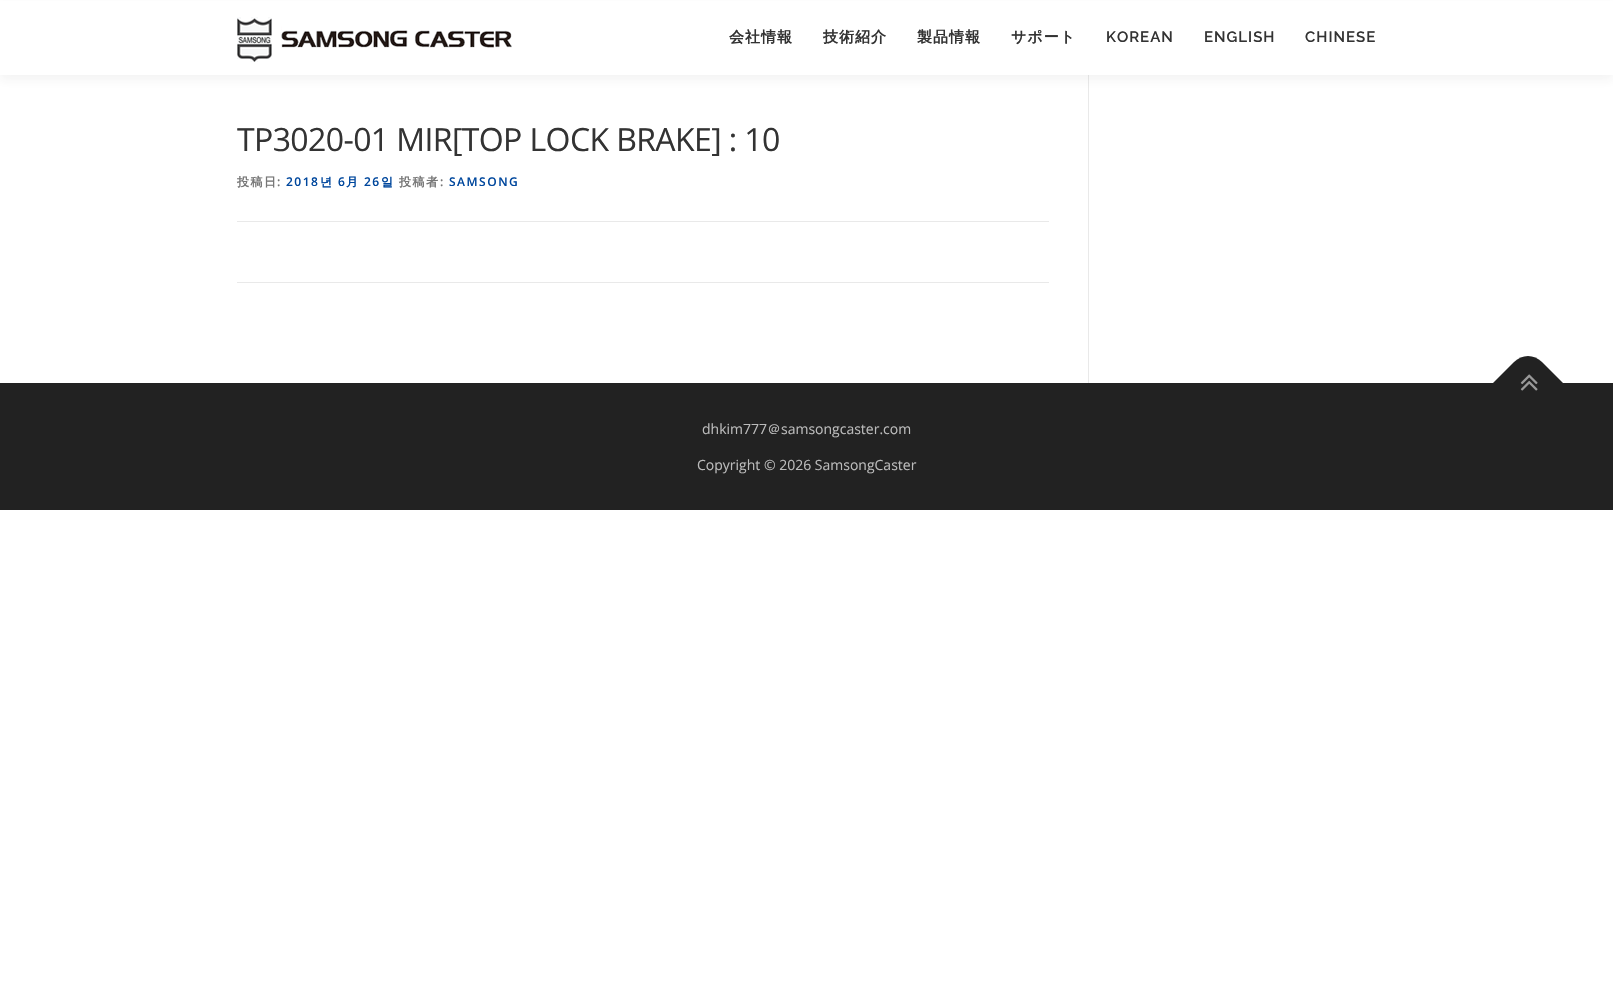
#include "include/core/SkBlurTypes.h"
#include "include/core/SkCanvas.h"
#include "include/core/SkData.h"
#include "include/core/SkFont.h"
#include "include/core/SkFontMgr.h"
#include "include/core/SkImage.h"
#include "include/core/SkMaskFilter.h"
#include "include/core/SkPaint.h"
#include "include/core/SkPathBuilder.h"
#include "include/core/SkTextBlob.h"
#include "include/effects/SkDashPathEffect.h"
#include "include/effects/SkGradientShader.h"
#include "include/utils/SkParsePath.h"

extern sk_sp<SkFontMgr> fontMgr;

void draw(SkCanvas* canvas) {
    SkPaint p;
    p.setAntiAlias(true);
    auto font = [&](const char* family, int weight, float size, bool italic = false) {
        SkFontStyle style(weight, SkFontStyle::kNormal_Width,
            italic ? SkFontStyle::kItalic_Slant : SkFontStyle::kUpright_Slant);
        SkFont result(fontMgr->matchFamilyStyle(family, style), size);
        result.setSubpixel(true);
        return result;
    };
    auto drawTracked = [&](const char* s, float x, float y, const SkFont& font, const SkPaint& ink, float letter, float word) {
        std::vector<SkGlyphID> glyphs(font.countText(s, strlen(s), SkTextEncoding::kUTF8));
        std::vector<float> xs(glyphs.size());
        font.textToGlyphs(s, strlen(s), SkTextEncoding::kUTF8, glyphs);
        font.getXPos(glyphs, xs, x);
        float extra = 0;
        for (size_t i = 0; i < glyphs.size(); i++) {
            xs[i] += extra;
            extra += letter + word * (glyphs[i] == font.unicharToGlyph(' '));
        }
        canvas->drawTextBlob(SkTextBlob::MakeFromPosHGlyphs(glyphs, xs, y, font), 0, 0, ink);
    };
    auto drawPhoto = [&](const char* path, float l, float t, float r, float b) {
        auto image = SkImages::DeferredFromEncodedData(SkData::MakeFromFileName(path));
        canvas->drawImageRect(image, SkRect::MakeLTRB(l, t, r, b), SkSamplingOptions());
    };
    canvas->clear(0xFFFFFFFF);
    p.setColor(0xFFE9E9E9);
    canvas->drawRect(SkRect::MakeLTRB(1088, 75, 1089, 383), p);
    p.setColor(0x0F323232);
    p.setMaskFilter(SkMaskFilter::MakeBlur(kNormal_SkBlurStyle, 5));
    canvas->drawRect(SkRect::MakeLTRB(0, 5, 1613, 80), p);
    p.setMaskFilter(nullptr);
    p.setColor(0xFFFFFFFF);
    canvas->drawRect(SkRect::MakeLTRB(0, 1, 1613, 75), p);
    drawPhoto("media/1.png", 237, 17, 512, 62);
    auto font1 = font("WenQuanYi Zen Hei", 700, 15);
    p.setColor(0xFF333333);
    {
        const struct { const char* s; float x, y; } items[] = {
            {"会社情報", 729, 42},
            {"技術紹介", 823, 42},
            {"製品情報", 917, 42},
            {"サポート", 1011, 42},
        };
        for (auto [s, x, y] : items) {
            drawTracked(s, x, y, font1, p, 1, 0);
        }
    }
    auto font2 = font("Raleway", 600, 15);
    {
        const struct { const char* s; float x, y; } items[] = {
            {"KOREAN", 1106, 42},
            {"ENGLISH", 1204, 42},
            {"CHINESE", 1305, 42},
        };
        for (auto [s, x, y] : items) {
            drawTracked(s, x, y, font2, p, 1, 0);
        }
    }
    auto font3 = font("Open Sans", 400, 32);
    drawTracked("TP3020-01 MIR[TOP LOCK BRAKE] : 10", 237, 151, font3, p, -0.6f, 0);
    p.setColor(0xFFE9E9E9);
    canvas->drawRect(SkRect::MakeLTRB(237, 221, 1049, 222), p);
    auto font4 = font("WenQuanYi Zen Hei", 700, 12);
    p.setColor(0xFF777777);
    drawTracked("投稿日", 237, 186, font4, p, 1.5f, 0);
    auto font5 = font("Open Sans", 600, 12);
    drawTracked(":", 277, 186, font5, p, 1.5f, 0);
    p.setColor(0xFF00479D);
    drawTracked("2018", 286, 186, font5, p, 1.5f, 0);
    drawTracked("년", 320, 186, font4, p, 1.5f, 0);
    drawTracked("6", 338, 186, font5, p, 1.5f, 0);
    drawTracked("月", 346, 186, font4, p, 1.5f, 0);
    drawTracked("26", 364, 186, font5, p, 1.5f, 0);
    drawTracked("일", 381, 186, font4, p, 1.5f, 0);
    p.setColor(0xFF777777);
    drawTracked("投稿者", 399, 186, font4, p, 1.5f, 0);
    drawTracked(":", 440, 186, font5, p, 1.5f, 0);
    p.setColor(0xFF00479D);
    drawTracked("SAMSONG", 449, 186, font5, p, 1.5f, 0);
    p.setColor(0xFFE9E9E9);
    canvas->drawRect(SkRect::MakeLTRB(237, 282, 1049, 283), p);
    p.setColor(0xFF222222);
    canvas->drawRect(SkRect::MakeLTRB(0, 383, 1613, 510), p);
    canvas->drawPath(SkPathBuilder().moveTo(1493, 383).lineTo(1514, 362).cubicTo(1522, 354, 1534, 354, 1542, 362).lineTo(1563, 383).lineTo(1528, 418).close().detach(), p);
    drawPhoto("media/2.png", 1520, 374, 1538, 391);
    auto font6 = font("Open Sans", 400, 14);
    p.setColor(0xFFBBBBBB);
    canvas->drawString("dhkim777", 702, 434, font6, p);
    auto font7 = font("WenQuanYi Zen Hei", 500, 14);
    canvas->drawString("＠", 767, 434, font7, p);
    canvas->drawString("samsongcaster.com", 781, 434, font6, p);
    canvas->drawString("Copyright © 2026 SamsongCaster", 697, 470, font6, p);
}
